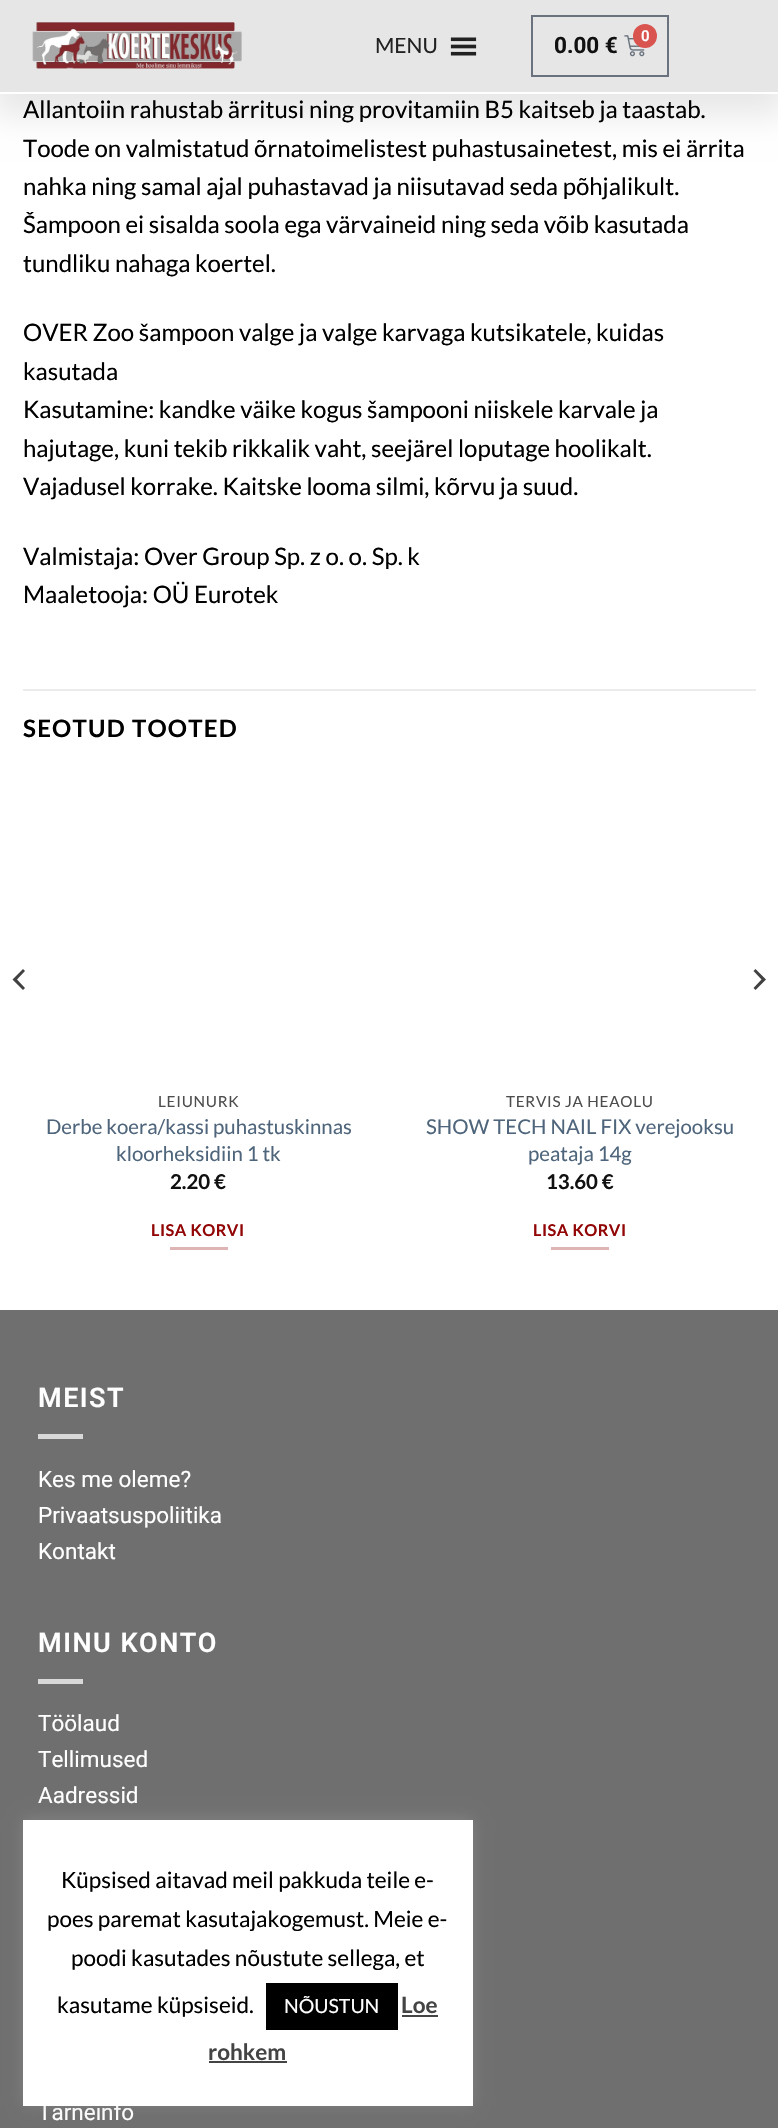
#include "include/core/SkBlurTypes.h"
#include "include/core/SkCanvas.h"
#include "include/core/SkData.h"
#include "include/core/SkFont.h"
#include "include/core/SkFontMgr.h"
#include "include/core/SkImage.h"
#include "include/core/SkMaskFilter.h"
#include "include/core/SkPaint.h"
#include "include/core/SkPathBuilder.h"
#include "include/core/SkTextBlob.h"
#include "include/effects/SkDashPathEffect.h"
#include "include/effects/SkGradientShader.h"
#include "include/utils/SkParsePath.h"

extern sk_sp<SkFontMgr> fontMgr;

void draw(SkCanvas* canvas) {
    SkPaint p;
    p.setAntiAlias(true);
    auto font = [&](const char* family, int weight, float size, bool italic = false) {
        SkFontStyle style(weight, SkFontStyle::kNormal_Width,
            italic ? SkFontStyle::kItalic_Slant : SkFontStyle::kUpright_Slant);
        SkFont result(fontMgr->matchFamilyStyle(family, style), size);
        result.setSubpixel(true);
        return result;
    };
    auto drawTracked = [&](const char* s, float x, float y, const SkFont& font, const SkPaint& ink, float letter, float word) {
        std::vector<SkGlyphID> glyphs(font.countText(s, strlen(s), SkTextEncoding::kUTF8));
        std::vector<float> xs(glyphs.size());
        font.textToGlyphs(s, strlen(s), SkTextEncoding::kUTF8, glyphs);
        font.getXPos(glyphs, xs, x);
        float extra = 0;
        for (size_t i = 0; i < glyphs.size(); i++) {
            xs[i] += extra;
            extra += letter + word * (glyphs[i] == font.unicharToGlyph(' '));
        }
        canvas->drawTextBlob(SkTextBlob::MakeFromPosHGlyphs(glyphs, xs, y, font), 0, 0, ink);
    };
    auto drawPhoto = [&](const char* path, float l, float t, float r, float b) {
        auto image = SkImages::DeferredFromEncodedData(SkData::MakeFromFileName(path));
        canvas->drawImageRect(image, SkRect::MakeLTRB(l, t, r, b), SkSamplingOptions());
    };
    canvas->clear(0xFFFFFFFF);
    p.setColor(0x17000000);
    p.setMaskFilter(SkMaskFilter::MakeBlur(kNormal_SkBlurStyle, 15));
    canvas->drawRect(SkRect::MakeLTRB(-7, 8, 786, 116), p);
    p.setMaskFilter(nullptr);
    p.setColor(0xFFE6E6E6);
    canvas->drawRect(SkRect::MakeLTRB(0, 0, 778, 92), p);
    p.setColor(0xFFFFFFFF);
    canvas->drawRect(SkRect::MakeLTRB(0, 92, 778, 94), p);
    drawPhoto("media/1.png", 32, 22, 242, 69);
    auto font1 = font("Lato", 400, 21);
    p.setColor(0xFF222222);
    canvas->drawString("MENU", 375, 53, font1, p);
    drawPhoto("media/2.png", 450, 37, 477, 56);
    p.setStyle(SkPaint::kStroke_Style);
    p.setStrokeWidth(2);
    p.setColor(0xFF69727D);
    canvas->drawRect(SkRect::MakeLTRB(532, 16, 668, 76), p);
    auto font2 = font("Roboto", 700, 22.5f);
    p.setStyle(SkPaint::kFill_Style);
    p.setColor(0xFF111111);
    canvas->drawString("0.00 €", 554, 53, font2, p);
    drawPhoto("media/3.png", 624, 35, 645, 57);
    p.setColor(0xFFD9534F);
    canvas->drawCircle(645, 36, 12, p);
    auto font3 = font("Roboto", 600, 15);
    p.setColor(0xFFFFFFFF);
    canvas->drawString("0", 641, 41, font3, p);
    auto font4 = font("Lato", 400, 24);
    p.setColor(0xFF000000);
    {
        const struct { const char* s; float x, y; } items[] = {
            {"Allantoiin rahustab ärritusi ning provitamiin B5 kaitseb ja taastab.", 23, 118},
            {"Toode on valmistatud õrnatoimelistest puhastusainetest, mis ei ärrita", 23, 157},
            {"nahka ning samal ajal puhastavad ja niisutavad seda põhjalikult.", 23, 195},
            {"Šampoon ei sisalda soola ega värvaineid ning seda võib kasutada", 23, 233},
            {"tundliku nahaga koertel.", 23, 272},
            {"OVER Zoo šampoon valge ja valge karvaga kutsikatele, kuidas", 23, 341},
            {"kasutada", 23, 380},
            {"Kasutamine: kandke väike kogus šampooni niiskele karvale ja", 23, 418},
            {"hajutage, kuni tekib rikkalik vaht, seejärel loputage hoolikalt.", 23, 457},
            {"Vajadusel korrake. Kaitske looma silmi, kõrvu ja suud.", 23, 495},
            {"Valmistaja: Over Group Sp. z o. o. Sp. k", 23, 565},
            {"Maaletooja: OÜ Eurotek", 23, 603},
        };
        for (auto [s, x, y] : items) {
            canvas->drawString(s, x, y, font4, p);
        }
    }
    p.setColor(0xFFECECEC);
    canvas->drawRect(SkRect::MakeLTRB(23, 689, 756, 691), p);
    auto font5 = font("Lato", 700, 24);
    p.setColor(0xFF000000);
    drawTracked("SEOTUD TOOTED", 23, 737, font5, p, 1.25f, 0);
    p.setColor(0xFF414141);
    canvas->drawPath(SkPathBuilder().moveTo(12.5f, 979.5f).lineTo(23, 990).lineTo(25, 988).lineTo(17, 979.5f).lineTo(25, 971).lineTo(23, 969).close().detach(), p);
    canvas->drawPath(SkPathBuilder().moveTo(766, 979.5f).lineTo(755.5f, 969).lineTo(753.5f, 971).lineTo(761.5f, 979.5f).lineTo(753.5f, 988).lineTo(755.5f, 990).close().detach(), p);
    auto font6 = font("Lato", 400, 15.25f);
    p.setColor(0xFF4D4D4D);
    drawTracked("LEIUNURK", 158, 1107, font6, p, 0.75f, 0);
    auto font7 = font("Lato", 400, 20.4f);
    p.setColor(0xFF4E657B);
    canvas->drawString("Derbe koera/kassi puhastuskinnas", 46, 1134, font7, p);
    canvas->drawString("kloorheksidiin 1 tk", 116, 1161, font7, p);
    auto font8 = font("Lato", 700, 20.4f);
    p.setColor(0xFF111111);
    canvas->drawString("2.20 €", 170, 1189, font8, p);
    auto font9 = font("Lato", 700, 16.25f);
    p.setColor(0xFF920606);
    drawTracked("LISA KORVI", 151, 1236, font9, p, 0.5f, 0);
    p.setColor(0xFFDEB4B4);
    canvas->drawRect(SkRect::MakeLTRB(170, 1247, 228, 1250), p);
    p.setColor(0xFF4D4D4D);
    drawTracked("TERVIS JA HEAOLU", 506, 1107, font6, p, 0.75f, 0);
    p.setColor(0xFF4E657B);
    canvas->drawString("SHOW TECH NAIL FIX verejooksu", 426, 1134, font7, p);
    canvas->drawString("peataja 14g", 528, 1161, font7, p);
    p.setColor(0xFF111111);
    canvas->drawString("13.60 €", 546, 1189, font8, p);
    p.setColor(0xFF920606);
    drawTracked("LISA KORVI", 533, 1236, font9, p, 0.5f, 0);
    p.setColor(0xFFDEB4B4);
    canvas->drawRect(SkRect::MakeLTRB(551, 1247, 609, 1250), p);
    p.setColor(0xFF6F6F6F);
    canvas->drawRect(SkRect::MakeLTRB(0, 1310, 778, 2128), p);
    auto font10 = font("Roboto", 600, 27);
    p.setColor(0xFFFFFFFF);
    drawTracked("MEIST", 38, 1407, font10, p, 1.5f, 0);
    p.setColor(0xFFD8D8D8);
    canvas->drawRect(SkRect::MakeLTRB(38, 1434, 83, 1439), p);
    auto font11 = font("Roboto", 400, 22.5f);
    p.setColor(0xFFFFFFFF);
    {
        const struct { const char* s; float x, y; } items[] = {
            {"Kes me oleme?", 38, 1487},
            {"Privaatsuspoliitika", 38, 1523},
            {"Kontakt", 38, 1559},
        };
        for (auto [s, x, y] : items) {
            canvas->drawString(s, x, y, font11, p);
        }
    }
    drawTracked("MINU KONTO", 38, 1652, font10, p, 1.5f, 0);
    p.setColor(0xFFD8D8D8);
    canvas->drawRect(SkRect::MakeLTRB(38, 1679, 83, 1684), p);
    p.setColor(0xFFFFFFFF);
    {
        const struct { const char* s; float x, y; } items[] = {
            {"Töölaud", 38, 1731},
            {"Tellimused", 38, 1767},
            {"Aadressid", 38, 1803},
            {"Tarneinfo", 38, 2120},
        };
        for (auto [s, x, y] : items) {
            canvas->drawString(s, x, y, font11, p);
        }
    }
    p.setColor(0x4DACABAB);
    p.setMaskFilter(SkMaskFilter::MakeBlur(kNormal_SkBlurStyle, 7.5f));
    canvas->drawRect(SkRect::MakeLTRB(23, 1818, 473, 2105), p);
    p.setMaskFilter(nullptr);
    p.setColor(0xFFFFFFFF);
    canvas->drawRect(SkRect::MakeLTRB(23, 1820, 473, 2106), p);
    auto font12 = font("Lato", 400, 22.5f);
    p.setColor(0xFF000000);
    {
        const struct { const char* s; float x, y; } items[] = {
            {"Küpsised aitavad meil pakkuda teile e-", 61, 1888},
            {"poes paremat kasutajakogemust. Meie e-", 47, 1927},
            {"poodi kasutades nõustute sellega, et", 71, 1966},
            {"kasutame küpsiseid.", 57, 2013},
        };
        for (auto [s, x, y] : items) {
            canvas->drawString(s, x, y, font12, p);
        }
    }
    canvas->drawRect(SkRect::MakeLTRB(266, 1983, 398, 2030), p);
    auto font13 = font("Lato", 400, 19.5f);
    p.setColor(0xFFFFFFFF);
    canvas->drawString("NÕUSTUN", 284, 2013, font13, p);
    auto font14 = font("Lato", 700, 22.5f);
    p.setColor(0xFF444444);
    canvas->drawString("Loe", 401, 2013, font14, p);
    canvas->drawRect(SkRect::MakeLTRB(402, 2015, 438, 2017), p);
    canvas->drawString("rohkem", 208, 2060, font14, p);
    canvas->drawRect(SkRect::MakeLTRB(209, 2061, 287, 2063), p);
}
